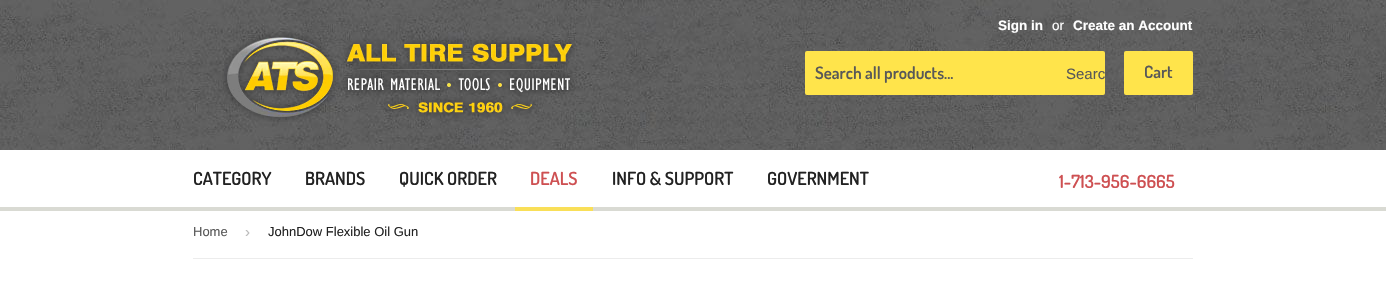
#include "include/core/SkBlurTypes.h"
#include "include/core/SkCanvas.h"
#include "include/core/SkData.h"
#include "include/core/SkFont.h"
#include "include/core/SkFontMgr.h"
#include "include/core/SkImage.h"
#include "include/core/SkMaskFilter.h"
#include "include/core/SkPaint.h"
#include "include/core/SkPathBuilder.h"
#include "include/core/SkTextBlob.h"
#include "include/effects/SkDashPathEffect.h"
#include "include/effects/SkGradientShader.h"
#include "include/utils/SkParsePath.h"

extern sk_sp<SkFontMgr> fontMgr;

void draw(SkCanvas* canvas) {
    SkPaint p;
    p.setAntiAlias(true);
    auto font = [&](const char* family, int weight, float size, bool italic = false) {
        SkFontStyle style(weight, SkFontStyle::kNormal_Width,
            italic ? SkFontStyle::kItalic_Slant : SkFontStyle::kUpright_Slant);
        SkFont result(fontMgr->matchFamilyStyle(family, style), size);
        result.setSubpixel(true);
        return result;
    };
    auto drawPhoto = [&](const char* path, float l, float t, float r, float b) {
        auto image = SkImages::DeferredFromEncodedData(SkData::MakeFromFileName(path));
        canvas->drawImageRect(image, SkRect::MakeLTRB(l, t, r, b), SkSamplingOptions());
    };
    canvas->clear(0xFFFFFFFF);
    drawPhoto("media/1.png", 0, 0, 1386, 150);
    drawPhoto("media/2.png", 222, 32, 575, 122);
    auto font1 = font("Liberation Sans", 700, 13.5f);
    p.setColor(0xFFFFFFFF);
    canvas->drawString("Sign in", 998, 30, font1, p);
    auto font2 = font("Liberation Sans", 400, 13.5f);
    canvas->drawString("or", 1052, 30, font2, p);
    canvas->drawString("Create an Account", 1073, 30, font1, p);
    p.setColor(0xFFFFE44B);
    canvas->drawRoundRect(SkRect::MakeLTRB(805, 51, 1105, 95), 2, 2, p);
    auto font3 = font("Dosis", 600, 17);
    p.setColor(0xFF585858);
    canvas->drawString("Search all products...", 815, 79, font3, p);
    auto font4 = font("Liberation Sans", 400, 15);
    canvas->drawString("Searc", 1066, 79, font4, p);
    p.setColor(0xFFFFE44B);
    canvas->drawRoundRect(SkRect::MakeLTRB(1124, 51, 1193, 95), 2, 2, p);
    p.setColor(0xFF585858);
    canvas->drawString("Cart", 1144, 78, font3, p);
    auto font5 = font("Dosis", 600, 18);
    p.setColor(0xFF222222);
    {
        const struct { const char* s; float x, y; } items[] = {
            {"CATEGORY", 193, 185},
            {"BRANDS", 305, 185},
            {"QUICK ORDER", 399, 185},
        };
        for (auto [s, x, y] : items) {
            canvas->drawString(s, x, y, font5, p);
        }
    }
    p.setColor(0xFFCE5052);
    canvas->drawString("DEALS", 530, 185, font5, p);
    p.setColor(0xFFD9DAD3);
    canvas->drawRect(SkRect::MakeLTRB(0, 207, 1386, 211), p);
    p.setColor(0xFFF9DF58);
    canvas->drawRect(SkRect::MakeLTRB(515, 207, 593, 211), p);
    p.setColor(0xFF222222);
    canvas->drawString("INFO & SUPPORT", 612, 185, font5, p);
    canvas->drawString("GOVERNMENT", 767, 185, font5, p);
    p.setColor(0xFFCE5052);
    canvas->drawString("1-713-956-6665", 1059, 188, font5, p);
    p.setColor(0xFFECECEC);
    canvas->drawRect(SkRect::MakeLTRB(193, 258, 1193, 259), p);
    auto font6 = font("Liberation Sans", 400, 13);
    p.setColor(0xFF585858);
    canvas->drawString("Home", 193, 236, font6, p);
    p.setColor(0xFFBBBBBB);
    canvas->drawString("›", 245, 237, font4, p);
    p.setColor(0xFF222222);
    canvas->drawString("JohnDow Flexible Oil Gun", 268, 236, font6, p);
}
